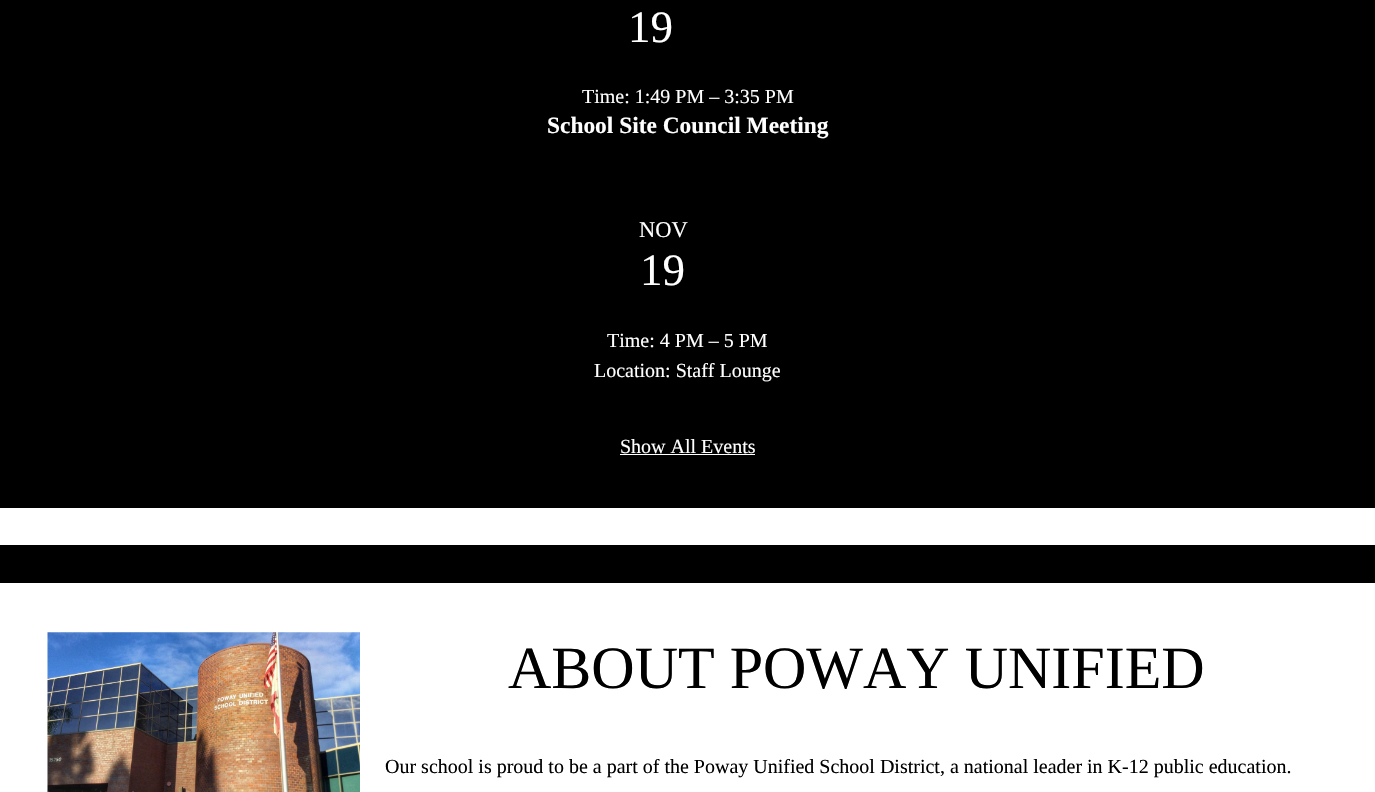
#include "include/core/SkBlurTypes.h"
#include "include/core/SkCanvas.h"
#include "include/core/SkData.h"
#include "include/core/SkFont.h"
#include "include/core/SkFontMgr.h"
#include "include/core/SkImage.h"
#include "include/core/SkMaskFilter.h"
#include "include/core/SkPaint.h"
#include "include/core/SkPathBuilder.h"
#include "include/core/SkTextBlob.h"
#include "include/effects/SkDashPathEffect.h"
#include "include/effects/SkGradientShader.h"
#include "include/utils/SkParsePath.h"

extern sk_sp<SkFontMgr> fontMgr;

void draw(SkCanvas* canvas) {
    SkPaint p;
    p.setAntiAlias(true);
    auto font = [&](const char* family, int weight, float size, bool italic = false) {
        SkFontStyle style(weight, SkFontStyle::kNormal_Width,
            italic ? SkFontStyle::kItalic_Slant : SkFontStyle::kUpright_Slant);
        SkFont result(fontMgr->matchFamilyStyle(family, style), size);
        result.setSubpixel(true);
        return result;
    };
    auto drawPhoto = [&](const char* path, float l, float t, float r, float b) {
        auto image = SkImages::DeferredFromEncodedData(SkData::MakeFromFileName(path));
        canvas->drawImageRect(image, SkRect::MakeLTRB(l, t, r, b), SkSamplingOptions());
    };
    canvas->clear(0xFF000000);
    p.setColor(0xFFFFFFFF);
    canvas->drawRect(SkRect::MakeLTRB(0, 508, 1375, 545), p);
    auto font1 = font("Liberation Serif", 400, 45);
    canvas->drawString("19", 628, 42, font1, p);
    auto font2 = font("Liberation Serif", 400, 20);
    canvas->drawString("Time: 1:49 PM – 3:35 PM", 582, 103, font2, p);
    auto font3 = font("Liberation Serif", 700, 23.4f);
    canvas->drawString("School Site Council Meeting", 547, 133, font3, p);
    auto font4 = font("Liberation Serif", 400, 22.5f);
    canvas->drawString("NOV", 639, 237, font4, p);
    canvas->drawString("19", 640, 285, font1, p);
    {
        const struct { const char* s; float x, y; } items[] = {
            {"Time: 4 PM – 5 PM", 607, 347},
            {"Location: Staff Lounge", 594, 377},
            {"Show All Events", 620, 453},
        };
        for (auto [s, x, y] : items) {
            canvas->drawString(s, x, y, font2, p);
        }
    }
    canvas->drawRect(SkRect::MakeLTRB(620, 454, 755, 455), p);
    canvas->drawRect(SkRect::MakeLTRB(0, 583, 1375, 792), p);
    drawPhoto("media/1.png", 47, 632, 360, 792);
    auto font5 = font("Liberation Serif", 400, 60);
    p.setColor(0xFF000000);
    canvas->drawString("ABOUT POWAY UNIFIED", 508, 688, font5, p);
    canvas->drawString("Our school is proud to be a part of the Poway Unified School District, a national leader in K-12 public education.", 385, 773, font2, p);
}
